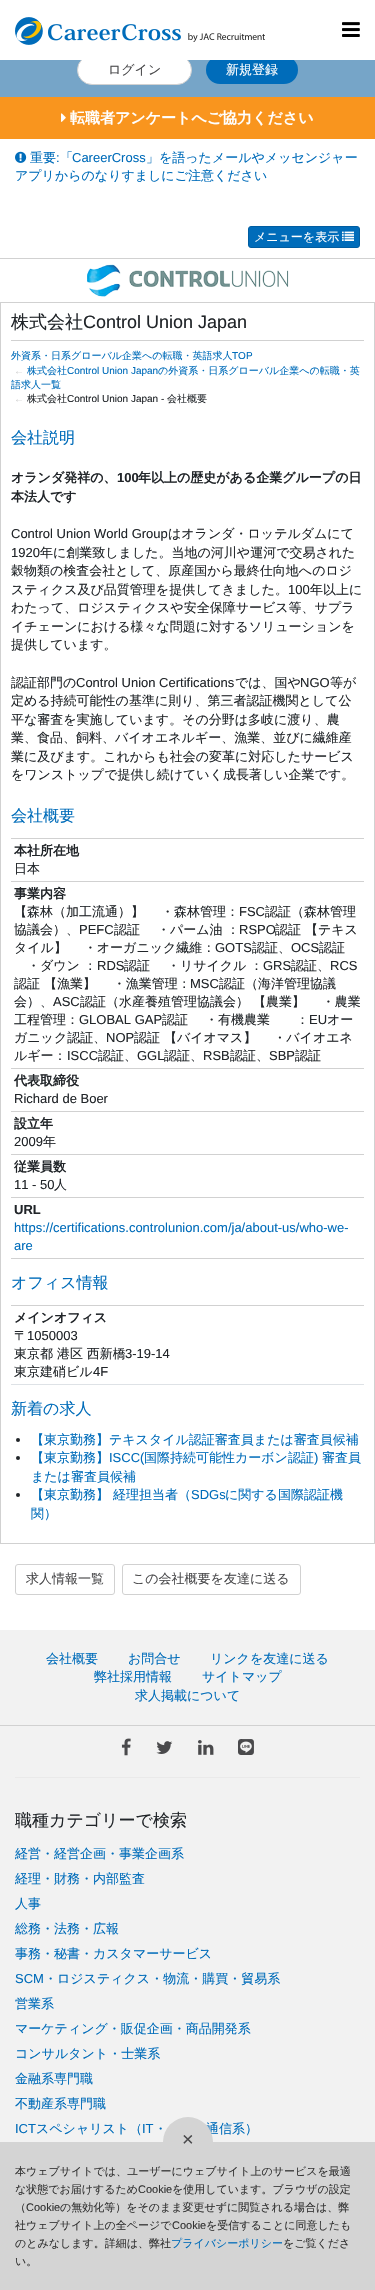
#include "include/core/SkBlurTypes.h"
#include "include/core/SkCanvas.h"
#include "include/core/SkData.h"
#include "include/core/SkFont.h"
#include "include/core/SkFontMgr.h"
#include "include/core/SkImage.h"
#include "include/core/SkMaskFilter.h"
#include "include/core/SkPaint.h"
#include "include/core/SkPathBuilder.h"
#include "include/core/SkTextBlob.h"
#include "include/effects/SkDashPathEffect.h"
#include "include/effects/SkGradientShader.h"
#include "include/utils/SkParsePath.h"

extern sk_sp<SkFontMgr> fontMgr;

void draw(SkCanvas* canvas) {
    SkPaint p;
    p.setAntiAlias(true);
    auto font = [&](const char* family, int weight, float size, bool italic = false) {
        SkFontStyle style(weight, SkFontStyle::kNormal_Width,
            italic ? SkFontStyle::kItalic_Slant : SkFontStyle::kUpright_Slant);
        SkFont result(fontMgr->matchFamilyStyle(family, style), size);
        result.setSubpixel(true);
        return result;
    };
    auto drawPhoto = [&](const char* path, float l, float t, float r, float b) {
        auto image = SkImages::DeferredFromEncodedData(SkData::MakeFromFileName(path));
        canvas->drawImageRect(image, SkRect::MakeLTRB(l, t, r, b), SkSamplingOptions());
    };
    canvas->clear(0xFFFFFFFF);
    p.setColor(0xFF76A5C8);
    canvas->drawRect(SkRect::MakeLTRB(0, 60, 375, 97), p);
    p.setColor(0xFFFFFFFF);
    canvas->drawRoundRect(SkRect::MakeLTRB(77.5f, 55.5f, 191.5f, 84.5f), 14.5f, 14.5f, p);
    p.setStyle(SkPaint::kStroke_Style);
    p.setStrokeWidth(1);
    p.setColor(0xFFD1D1D1);
    canvas->drawRoundRect(SkRect::MakeLTRB(77.5f, 55.5f, 191.5f, 84.5f), 14.5f, 14.5f, p);
    p.setStyle(SkPaint::kFill_Style);
    p.setColor(0xFF006CBA);
    canvas->drawRoundRect(SkRect::MakeLTRB(206, 56, 298, 84), 14, 14, p);
    p.setColor(0xFFFFFFFF);
    canvas->drawRect(SkRect::MakeLTRB(81, 55, 294, 60), p);
    drawPhoto("media/1.png", 15, 17, 265, 45);
    drawPhoto("media/2.png", 342, 22, 360, 37);
    auto font1 = font("WenQuanYi Zen Hei", 500, 13);
    p.setColor(0xFF4A4A4C);
    canvas->drawString("ログイン", 108, 74, font1, p);
    p.setColor(0xFFFFFFFF);
    canvas->drawString("新規登録", 226, 74, font1, p);
    p.setColor(0xFFF9951E);
    canvas->drawRect(SkRect::MakeLTRB(0, 97, 375, 139), p);
    drawPhoto("media/3.png", 61, 113, 66, 122);
    auto font2 = font("WenQuanYi Zen Hei", 700, 15);
    p.setColor(0xFFFFFFFF);
    canvas->drawString("転職者アンケートへご協力ください", 70, 123, font2, p);
    drawPhoto("media/4.png", 15, 151, 27, 163);
    p.setColor(0xFF006CBA);
    canvas->drawString("重要 「", 30, 162, font1, p);
    auto font3 = font("Liberation Sans", 400, 13);
    canvas->drawString("CareerCross", 72, 162, font3, p);
    canvas->drawString("」を語ったメールやメッセンジャー", 146, 162, font1, p);
    canvas->drawString(":", 56, 162, font3, p);
    canvas->drawString("アプリからのなりすましにご注意ください", 15, 180, font1, p);
    canvas->drawRoundRect(SkRect::MakeLTRB(248.5f, 226.5f, 359.5f, 247.5f), 2.5f, 2.5f, p);
    p.setStyle(SkPaint::kStroke_Style);
    p.setColor(0xFF005DA1);
    canvas->drawRoundRect(SkRect::MakeLTRB(248.5f, 226.5f, 359.5f, 247.5f), 2.5f, 2.5f, p);
    auto font4 = font("WenQuanYi Zen Hei", 500, 12);
    p.setStyle(SkPaint::kFill_Style);
    p.setColor(0xFFFFFFFF);
    canvas->drawString("メニューを表示", 254, 241, font4, p);
    drawPhoto("media/5.png", 342, 231, 354, 241);
    p.setColor(0xFFD1D1D1);
    canvas->drawRect(SkRect::MakeLTRB(0, 258, 375, 259), p);
    drawPhoto("media/6.png", 87, 264, 289, 297);
    p.setStyle(SkPaint::kStroke_Style);
    canvas->drawRect(SkRect::MakeLTRB(0.5f, 302.5f, 374.5f, 1543.5f), p);
    p.setStyle(SkPaint::kFill_Style);
    canvas->drawRect(SkRect::MakeLTRB(11, 340, 364, 341), p);
    auto font5 = font("WenQuanYi Zen Hei", 500, 18);
    p.setColor(0xFF212529);
    canvas->drawString("株式会社", 11, 328, font5, p);
    auto font6 = font("Liberation Sans", 400, 18);
    canvas->drawString("Control Union Japan", 83, 328, font6, p);
    auto font7 = font("WenQuanYi Zen Hei", 500, 10);
    p.setColor(0xFF006CBA);
    canvas->drawString("外資系・日系グローバル企業への転職・英語求人", 11, 359, font7, p);
    auto font8 = font("Liberation Sans", 400, 10);
    canvas->drawString("TOP", 232, 359, font8, p);
    p.setColor(0xFFD1D1D1);
    canvas->drawString("←", 14, 374, font8, p);
    p.setColor(0xFF006CBA);
    canvas->drawString("株式会社", 27, 374, font7, p);
    canvas->drawString("Control Union Japan", 67, 374, font8, p);
    canvas->drawString("の外資系・日系グローバル企業への転職・英", 158, 374, font7, p);
    canvas->drawString("語求人一覧", 11, 388, font7, p);
    p.setColor(0xFFD1D1D1);
    canvas->drawString("←", 14, 402, font8, p);
    p.setColor(0xFF212529);
    canvas->drawString("株式会社", 27, 402, font7, p);
    canvas->drawString("Control Union Japan -", 67, 402, font8, p);
    canvas->drawString("会社概要", 167, 402, font7, p);
    auto font9 = font("WenQuanYi Zen Hei", 500, 16);
    p.setColor(0xFF006CBA);
    canvas->drawString("会社説明", 11, 443, font9, p);
    auto font10 = font("WenQuanYi Zen Hei", 700, 13);
    p.setColor(0xFF212529);
    canvas->drawString("オランダ発祥の、", 11, 482, font10, p);
    auto font11 = font("Liberation Sans", 700, 13);
    canvas->drawString("100", 117, 482, font11, p);
    canvas->drawString("年以上の歴史がある企業グループの日", 138, 482, font10, p);
    canvas->drawString("本法人です", 11, 501, font10, p);
    canvas->drawString("Control Union World Group", 11, 538, font3, p);
    canvas->drawString("はオランダ・ロッテルダムにて", 168, 538, font1, p);
    canvas->drawString("1920", 11, 557, font3, p);
    {
        const struct { const char* s; float x, y; } items[] = {
            {"年に創業致しました。当地の河川や運河で交易された", 40, 557},
            {"穀物類の検査会社として、原産国から最終仕向地へのロジ", 11, 575},
            {"スティクス及び品質管理を提供してきました。", 11, 594},
        };
        for (auto [s, x, y] : items) {
            canvas->drawString(s, x, y, font1, p);
        }
    }
    canvas->drawString("100", 288, 594, font3, p);
    {
        const struct { const char* s; float x, y; } items[] = {
            {"年以上に", 310, 594},
            {"わたって、ロジスティクスや安全保障サービス等、サプラ", 11, 612},
            {"イチェーンにおける様々な問題に対するソリューションを", 11, 631},
            {"提供しています。", 11, 649},
            {"認証部門の", 11, 687},
        };
        for (auto [s, x, y] : items) {
            canvas->drawString(s, x, y, font1, p);
        }
    }
    canvas->drawString("Control Union Certifications", 76, 687, font3, p);
    canvas->drawString("では、国や", 235, 687, font1, p);
    canvas->drawString("NGO", 300, 687, font3, p);
    {
        const struct { const char* s; float x, y; } items[] = {
            {"等が", 330, 687},
            {"定める持続可能性の基準に則り、第三者認証機関として公", 11, 705},
            {"平な審査を実施しています。その分野は多岐に渡り、農", 11, 724},
            {"業、食品、飼料、バイオエネルギー、漁業、並びに繊維産", 11, 742},
            {"業に及びます。これからも社会の変革に対応したサービス", 11, 761},
            {"をワンストップで提供し続けていく成長著しい企業です。", 11, 779},
        };
        for (auto [s, x, y] : items) {
            canvas->drawString(s, x, y, font1, p);
        }
    }
    p.setColor(0xFF006CBA);
    canvas->drawString("会社概要", 11, 821, font9, p);
    p.setColor(0xFFD1D1D1);
    canvas->drawRect(SkRect::MakeLTRB(11, 838, 364, 839), p);
    p.setColor(0xFF212529);
    canvas->drawString("本社所在地", 14, 855, font10, p);
    p.setColor(0xFFD1D1D1);
    canvas->drawRect(SkRect::MakeLTRB(11, 881, 364, 882), p);
    p.setColor(0xFF212529);
    canvas->drawString("日本", 14, 873, font1, p);
    canvas->drawString("事業内容", 14, 898, font10, p);
    p.setColor(0xFFD1D1D1);
    canvas->drawRect(SkRect::MakeLTRB(11, 1068, 364, 1069), p);
    p.setColor(0xFF212529);
    canvas->drawString("【森林（加工流通）】 　・森林管理：", 14, 916, font1, p);
    canvas->drawString("FSC", 239, 916, font3, p);
    canvas->drawString("認証（森林管理", 265, 916, font1, p);
    canvas->drawString("協議会）、", 14, 934, font1, p);
    canvas->drawString("PEFC", 79, 934, font3, p);
    canvas->drawString("認証 　・パーム油 ：", 114, 934, font1, p);
    canvas->drawString("RSPO", 239, 934, font3, p);
    canvas->drawString("認証 【テキス", 275, 934, font1, p);
    canvas->drawString("タイル】 　・オーガニック繊維：", 14, 952, font1, p);
    canvas->drawString("GOTS", 215, 952, font3, p);
    canvas->drawString("認証、", 252, 952, font1, p);
    canvas->drawString("OCS", 291, 952, font3, p);
    canvas->drawString("認証", 319, 952, font1, p);
    canvas->drawString("・ダウン ：", 27, 970, font1, p);
    canvas->drawString("RDS", 97, 970, font3, p);
    canvas->drawString("認証 　・リサイクル", 124, 970, font1, p);
    canvas->drawString("：", 250, 970, font1, p);
    canvas->drawString("GRS", 263, 970, font3, p);
    canvas->drawString("認証、", 291, 970, font1, p);
    canvas->drawString("RCS", 330, 970, font3, p);
    canvas->drawString("認証 【漁業】 　・漁業管理：", 14, 988, font1, p);
    canvas->drawString("MSC", 190, 988, font3, p);
    canvas->drawString("認証（海洋管理協議", 219, 988, font1, p);
    canvas->drawString("会）、", 14, 1006, font1, p);
    canvas->drawString("ASC", 53, 1006, font3, p);
    canvas->drawString("認証（水産養殖管理協議会） 【農業】 　・農業", 80, 1006, font1, p);
    canvas->drawString("工程管理：", 14, 1024, font1, p);
    canvas->drawString("GLOBAL GAP", 79, 1024, font3, p);
    canvas->drawString("認証", 162, 1024, font1, p);
    canvas->drawString("・有機農業　　：", 205, 1024, font1, p);
    canvas->drawString("EU", 309, 1024, font3, p);
    canvas->drawString("オー", 327, 1024, font1, p);
    canvas->drawString("ガニック認証、", 14, 1042, font1, p);
    canvas->drawString("NOP", 106, 1042, font3, p);
    canvas->drawString("認証 【バイオマス】 　・バイオエネ", 134, 1042, font1, p);
    canvas->drawString("ルギー：", 14, 1060, font1, p);
    canvas->drawString("ISCC", 67, 1060, font3, p);
    canvas->drawString("認証、", 98, 1060, font1, p);
    canvas->drawString("GGL", 137, 1060, font3, p);
    canvas->drawString("認証、", 164, 1060, font1, p);
    canvas->drawString("RSB", 203, 1060, font3, p);
    canvas->drawString("認証、", 230, 1060, font1, p);
    canvas->drawString("SBP", 269, 1060, font3, p);
    canvas->drawString("認証", 295, 1060, font1, p);
    canvas->drawString("代表取締役", 14, 1085, font10, p);
    p.setColor(0xFFD1D1D1);
    canvas->drawRect(SkRect::MakeLTRB(11, 1111, 364, 1112), p);
    p.setColor(0xFF212529);
    canvas->drawString("Richard de Boer", 14, 1103, font3, p);
    canvas->drawString("設立年", 14, 1128, font10, p);
    p.setColor(0xFFD1D1D1);
    canvas->drawRect(SkRect::MakeLTRB(11, 1154, 364, 1155), p);
    p.setColor(0xFF212529);
    canvas->drawString("2009", 14, 1146, font3, p);
    canvas->drawString("年", 43, 1146, font1, p);
    canvas->drawString("従業員数", 14, 1171, font10, p);
    p.setColor(0xFFD1D1D1);
    canvas->drawRect(SkRect::MakeLTRB(11, 1197, 364, 1198), p);
    p.setColor(0xFF212529);
    canvas->drawString("11 - 50", 14, 1189, font3, p);
    canvas->drawString("人", 54, 1189, font1, p);
    canvas->drawString("URL", 14, 1214, font11, p);
    p.setColor(0xFFD1D1D1);
    canvas->drawRect(SkRect::MakeLTRB(11, 1258, 364, 1259), p);
    p.setColor(0xFF006CBA);
    canvas->drawString("https://certifications.controlunion.com/ja/about-us/who-we-", 14, 1232, font3, p);
    canvas->drawString("are", 14, 1250, font3, p);
    canvas->drawString("オフィス情報", 11, 1288, font9, p);
    p.setColor(0xFFD1D1D1);
    canvas->drawRect(SkRect::MakeLTRB(11, 1305, 364, 1306), p);
    p.setColor(0xFF212529);
    canvas->drawString("メインオフィス", 14, 1322, font10, p);
    p.setColor(0xFFDEE2E6);
    canvas->drawRect(SkRect::MakeLTRB(11, 1384, 364, 1385), p);
    p.setColor(0xFF212529);
    canvas->drawString("〒", 14, 1340, font1, p);
    canvas->drawString("1050003", 27, 1340, font3, p);
    canvas->drawString("東京都 港区 西新橋", 14, 1358, font1, p);
    canvas->drawString("3-19-14", 125, 1358, font3, p);
    canvas->drawString("東京建硝ビル", 14, 1376, font1, p);
    canvas->drawString("4F", 93, 1376, font3, p);
    p.setColor(0xFF006CBA);
    canvas->drawString("新着の求人", 11, 1414, font9, p);
    p.setColor(0xFF212529);
    canvas->drawCircle(18, 1440, 2, p);
    p.setColor(0xFF006CBA);
    canvas->drawString("【東京勤務】テキスタイル認証審査員または審査員候補", 31, 1444, font1, p);
    p.setColor(0xFF212529);
    canvas->drawCircle(18, 1458, 2, p);
    p.setColor(0xFF006CBA);
    canvas->drawString("【東京勤務】", 31, 1462, font1, p);
    canvas->drawString("ISCC(", 109, 1462, font3, p);
    canvas->drawString("国際持続可能性カーボン認証", 144, 1462, font1, p);
    canvas->drawString(")", 314, 1462, font3, p);
    canvas->drawString("審査員", 322, 1462, font1, p);
    canvas->drawString("または審査員候補", 31, 1481, font1, p);
    p.setColor(0xFF212529);
    canvas->drawCircle(18, 1495, 2, p);
    p.setColor(0xFF006CBA);
    canvas->drawString("【東京勤務】 経理担当者（", 31, 1499, font1, p);
    canvas->drawString("SDGs", 191, 1499, font3, p);
    canvas->drawString("に関する国際認証機", 225, 1499, font1, p);
    canvas->drawString("関）", 31, 1518, font1, p);
    p.setStyle(SkPaint::kStroke_Style);
    p.setColor(0xFFD1D1D1);
    canvas->drawRoundRect(SkRect::MakeLTRB(15.5f, 1564.5f, 114.5f, 1594.5f), 2.5f, 2.5f, p);
    p.setStyle(SkPaint::kFill_Style);
    p.setColor(0xFF4A4A4C);
    canvas->drawString("求人情報一覧", 26, 1583, font1, p);
    p.setStyle(SkPaint::kStroke_Style);
    p.setColor(0xFFD1D1D1);
    canvas->drawRoundRect(SkRect::MakeLTRB(122.5f, 1564.5f, 300.5f, 1594.5f), 2.5f, 2.5f, p);
    p.setStyle(SkPaint::kFill_Style);
    p.setColor(0xFF4A4A4C);
    canvas->drawString("この会社概要を友達に送る", 132, 1583, font1, p);
    p.setColor(0xFFF2F2F2);
    canvas->drawRect(SkRect::MakeLTRB(0, 1630, 375, 2142), p);
    p.setColor(0xFF006CBA);
    {
        const struct { const char* s; float x, y; } items[] = {
            {"会社概要", 46, 1663},
            {"お問合せ", 128, 1663},
            {"リンクを友達に送る", 210, 1663},
            {"弊社採用情報", 94, 1681},
            {"サイトマップ", 202, 1681},
            {"求人掲載について", 135, 1700},
        };
        for (auto [s, x, y] : items) {
            canvas->drawString(s, x, y, font1, p);
        }
    }
    p.setColor(0xFFD1D1D1);
    canvas->drawRect(SkRect::MakeLTRB(0, 1725, 375, 1726), p);
    drawPhoto("media/7.png", 121, 1738, 131, 1756);
    drawPhoto("media/8.png", 156, 1741, 173, 1754);
    drawPhoto("media/9.png", 198, 1740, 214, 1755);
    drawPhoto("media/10.png", 238, 1739, 254, 1755);
    p.setColor(0xFFEAEAEA);
    canvas->drawRect(SkRect::MakeLTRB(15, 1777, 360, 1778), p);
    auto font12 = font("WenQuanYi Zen Hei", 500, 17);
    p.setColor(0xFF212529);
    canvas->drawString("職種カテゴリーで検索", 15, 1826, font12, p);
    p.setColor(0xFF006CBA);
    {
        const struct { const char* s; float x, y; } items[] = {
            {"経営・経営企画・事業企画系", 15, 1858},
            {"経理・財務・内部監査", 15, 1883},
            {"人事", 15, 1908},
            {"総務・法務・広報", 15, 1933},
            {"事務・秘書・カスタマーサービス", 15, 1958},
        };
        for (auto [s, x, y] : items) {
            canvas->drawString(s, x, y, font1, p);
        }
    }
    canvas->drawString("SCM", 15, 1983, font3, p);
    {
        const struct { const char* s; float x, y; } items[] = {
            {"・ロジスティクス・物流・購買・貿易系", 44, 1983},
            {"営業系", 15, 2008},
            {"マーケティング・販促企画・商品開発系", 15, 2033},
            {"コンサルタント・士業系", 15, 2058},
            {"金融系専門職", 15, 2083},
            {"不動産系専門職", 15, 2108},
        };
        for (auto [s, x, y] : items) {
            canvas->drawString(s, x, y, font1, p);
        }
    }
    canvas->drawString("ICT", 15, 2133, font3, p);
    canvas->drawString("スペシャリスト（", 36, 2133, font1, p);
    canvas->drawString("IT", 142, 2133, font3, p);
    canvas->drawString("・", 154, 2133, font1, p);
    canvas->drawString("通信系）", 206, 2133, font1, p);
    p.setColor(0xFFD4D4D4);
    canvas->drawRect(SkRect::MakeLTRB(0, 2142, 375, 2290), p);
    auto font13 = font("WenQuanYi Zen Hei", 500, 11);
    p.setColor(0xFF333333);
    canvas->drawString("本ウェブサイトでは、ユーザーにウェブサイト上のサービスを最適", 15, 2175, font13, p);
    p.setColor(0xFFD4D4D4);
    canvas->drawCircle(188, 2142, 25, p);
    auto font14 = font("Liberation Sans", 400, 20);
    p.setColor(0xFF4A4A4C);
    canvas->drawString("×", 182, 2146, font14, p);
    p.setColor(0xFF333333);
    canvas->drawString("な状態でお届けするため", 15, 2193, font13, p);
    auto font15 = font("Liberation Sans", 400, 11);
    canvas->drawString("Cookie", 138, 2193, font15, p);
    canvas->drawString("を使用しています。ブラウザの設定", 172, 2193, font13, p);
    canvas->drawString("（", 15, 2211, font13, p);
    canvas->drawString("Cookie", 26, 2211, font15, p);
    canvas->drawString("の無効化等）をそのまま変更せずに閲覧される場合は、弊", 60, 2211, font13, p);
    canvas->drawString("社ウェブサイト上の全ページで", 15, 2229, font13, p);
    canvas->drawString("Cookie", 172, 2229, font15, p);
    canvas->drawString("を受信することに同意したも", 206, 2229, font13, p);
    canvas->drawString("のとみなします。詳細は、弊社", 15, 2247, font13, p);
    p.setColor(0xFF006CBA);
    canvas->drawString("プライバシーポリシー", 171, 2247, font13, p);
    p.setColor(0xFF333333);
    canvas->drawString("をご覧くださ", 283, 2247, font13, p);
    canvas->drawString("い。", 15, 2265, font13, p);
}
